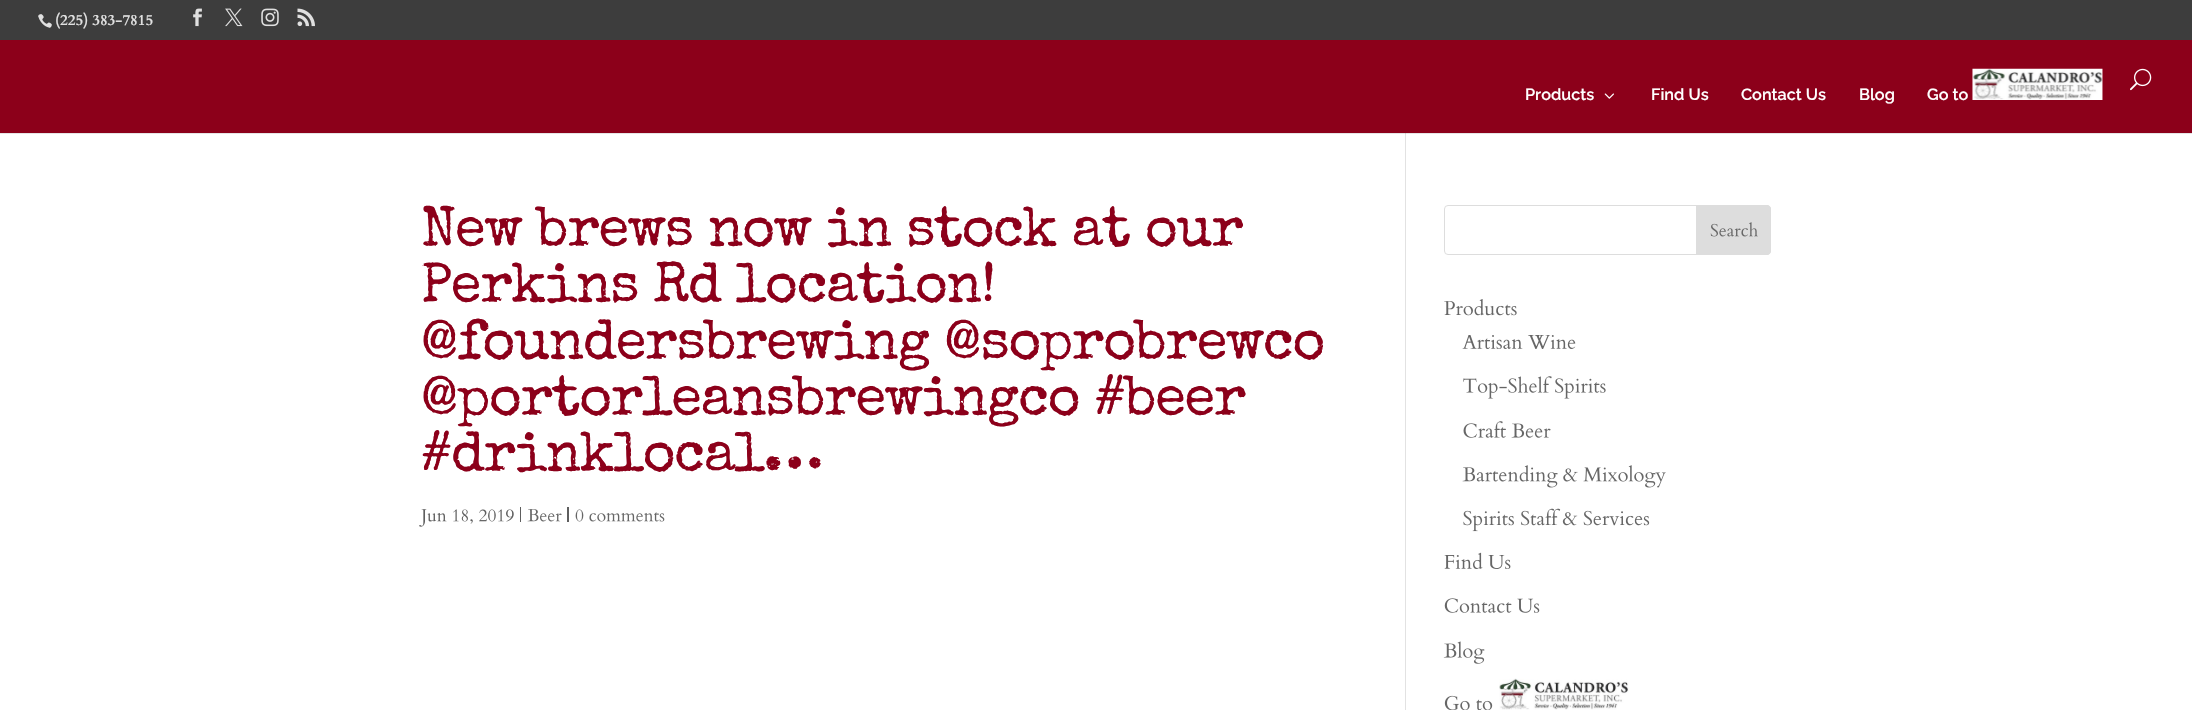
#include "include/core/SkBlurTypes.h"
#include "include/core/SkCanvas.h"
#include "include/core/SkData.h"
#include "include/core/SkFont.h"
#include "include/core/SkFontMgr.h"
#include "include/core/SkImage.h"
#include "include/core/SkMaskFilter.h"
#include "include/core/SkPaint.h"
#include "include/core/SkPathBuilder.h"
#include "include/core/SkTextBlob.h"
#include "include/effects/SkDashPathEffect.h"
#include "include/effects/SkGradientShader.h"
#include "include/utils/SkParsePath.h"

extern sk_sp<SkFontMgr> fontMgr;

void draw(SkCanvas* canvas) {
    SkPaint p;
    p.setAntiAlias(true);
    auto font = [&](const char* family, int weight, float size, bool italic = false) {
        SkFontStyle style(weight, SkFontStyle::kNormal_Width,
            italic ? SkFontStyle::kItalic_Slant : SkFontStyle::kUpright_Slant);
        SkFont result(fontMgr->matchFamilyStyle(family, style), size);
        result.setSubpixel(true);
        return result;
    };
    auto drawTracked = [&](const char* s, float x, float y, const SkFont& font, const SkPaint& ink, float letter, float word) {
        std::vector<SkGlyphID> glyphs(font.countText(s, strlen(s), SkTextEncoding::kUTF8));
        std::vector<float> xs(glyphs.size());
        font.textToGlyphs(s, strlen(s), SkTextEncoding::kUTF8, glyphs);
        font.getXPos(glyphs, xs, x);
        float extra = 0;
        for (size_t i = 0; i < glyphs.size(); i++) {
            xs[i] += extra;
            extra += letter + word * (glyphs[i] == font.unicharToGlyph(' '));
        }
        canvas->drawTextBlob(SkTextBlob::MakeFromPosHGlyphs(glyphs, xs, y, font), 0, 0, ink);
    };
    auto drawPhoto = [&](const char* path, float l, float t, float r, float b) {
        auto image = SkImages::DeferredFromEncodedData(SkData::MakeFromFileName(path));
        canvas->drawImageRect(image, SkRect::MakeLTRB(l, t, r, b), SkSamplingOptions());
    };
    canvas->clear(0xFFFFFFFF);
    p.setColor(0xFF3D3D3D);
    canvas->drawRect(SkRect::MakeLTRB(0, 0, 2192, 40), p);
    drawPhoto("media/1.png", 38, 14, 52, 28);
    auto font1 = font("Cardo", 700, 15);
    p.setColor(0xFFE0E0E0);
    canvas->drawString("(225) 383-7815", 55, 25, font1, p);
    drawPhoto("media/2.png", 193, 8, 202, 27);
    drawPhoto("media/3.png", 225, 8, 243, 27);
    drawPhoto("media/4.png", 261, 8, 279, 27);
    drawPhoto("media/5.png", 297, 8, 315, 27);
    p.setColor(0xFFE2E2E2);
    canvas->drawRect(SkRect::MakeLTRB(1405, 133, 1406, 710), p);
    p.setColor(0x1A000000);
    canvas->drawPath(SkPathBuilder().moveTo(0, 132).lineTo(0, 134).lineTo(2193, 134).lineTo(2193, 41).lineTo(2192, 41).lineTo(2192, 132).close().detach(), p);
    p.setColor(0xFF8C001A);
    canvas->drawRect(SkRect::MakeLTRB(0, 40, 2192, 133), p);
    drawPhoto("media/6.png", 2130, 68, 2152, 91);
    auto font2 = font("Raleway", 600, 16.25f);
    p.setColor(0xFFFFFFFF);
    canvas->drawString("Products", 1525, 100, font2, p);
    drawPhoto("media/7.png", 1604, 93, 1614, 99);
    {
        const struct { const char* s; float x, y; } items[] = {
            {"Find Us", 1651, 100},
            {"Contact Us", 1741, 100},
            {"Blog", 1859, 100},
            {"Go to", 1927, 100},
        };
        for (auto [s, x, y] : items) {
            canvas->drawString(s, x, y, font2, p);
        }
    }
    drawPhoto("media/8.png", 1972, 68, 2103, 100);
    auto font3 = font("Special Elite", 400, 56.25f);
    p.setColor(0xFF8C001A);
    {
        const struct { const char* s; float x, y; } items[] = {
            {"New brews now in stock at our", 421, 245},
            {"Perkins Rd location!", 421, 301},
            {"@foundersbrewing @soprobrewco", 421, 358},
            {"@portorleansbrewingco #beer", 421, 414},
            {"#drinklocal…", 421, 470},
        };
        for (auto [s, x, y] : items) {
            drawTracked(s, x, y, font3, p, -1.25f, 0);
        }
    }
    drawPhoto("media/9.png", 419, 509, 514, 527);
    p.setColor(0xFF5E5E5E);
    canvas->drawRect(SkRect::MakeLTRB(520, 507, 521, 522), p);
    drawPhoto("media/10.png", 527, 509, 562, 522);
    canvas->drawRect(SkRect::MakeLTRB(567, 507, 569, 522), p);
    drawPhoto("media/11.png", 575, 509, 665, 522);
    p.setStyle(SkPaint::kStroke_Style);
    p.setStrokeWidth(1);
    p.setColor(0xFFDDDDDD);
    canvas->drawRoundRect(SkRect::MakeLTRB(1444.5f, 205.5f, 1770.5f, 254.5f), 3.5f, 3.5f, p);
    p.setStyle(SkPaint::kFill_Style);
    canvas->drawPath(SkPathBuilder().moveTo(1696.5f, 205.5f).lineTo(1767, 205.5f).cubicTo(1769, 205.5f, 1770.5f, 207, 1770.5f, 209).lineTo(1770.5f, 251).cubicTo(1770.5f, 253, 1769, 254.5f, 1767, 254.5f).lineTo(1696.5f, 254.5f).close().detach(), p);
    p.setStyle(SkPaint::kStroke_Style);
    canvas->drawPath(SkPathBuilder().moveTo(1696.5f, 205.5f).lineTo(1767, 205.5f).cubicTo(1769, 205.5f, 1770.5f, 207, 1770.5f, 209).lineTo(1770.5f, 251).cubicTo(1770.5f, 253, 1769, 254.5f, 1767, 254.5f).lineTo(1696.5f, 254.5f).close().detach(), p);
    drawPhoto("media/12.png", 1710, 222, 1758, 237);
    drawPhoto("media/13.png", 1444, 299, 1517, 316);
    drawPhoto("media/14.png", 1462, 335, 1576, 349);
    drawPhoto("media/15.png", 1463, 376, 1606, 399);
    drawPhoto("media/16.png", 1463, 421, 1551, 438);
    drawPhoto("media/17.png", 1462, 465, 1666, 488);
    drawPhoto("media/18.png", 1463, 508, 1650, 532);
    drawPhoto("media/19.png", 1444, 552, 1511, 569);
    drawPhoto("media/20.png", 1444, 598, 1540, 613);
    drawPhoto("media/21.png", 1443, 641, 1485, 664);
    drawPhoto("media/22.png", 1444, 695, 1493, 710);
    drawPhoto("media/23.png", 1499, 678, 1629, 710);
}
